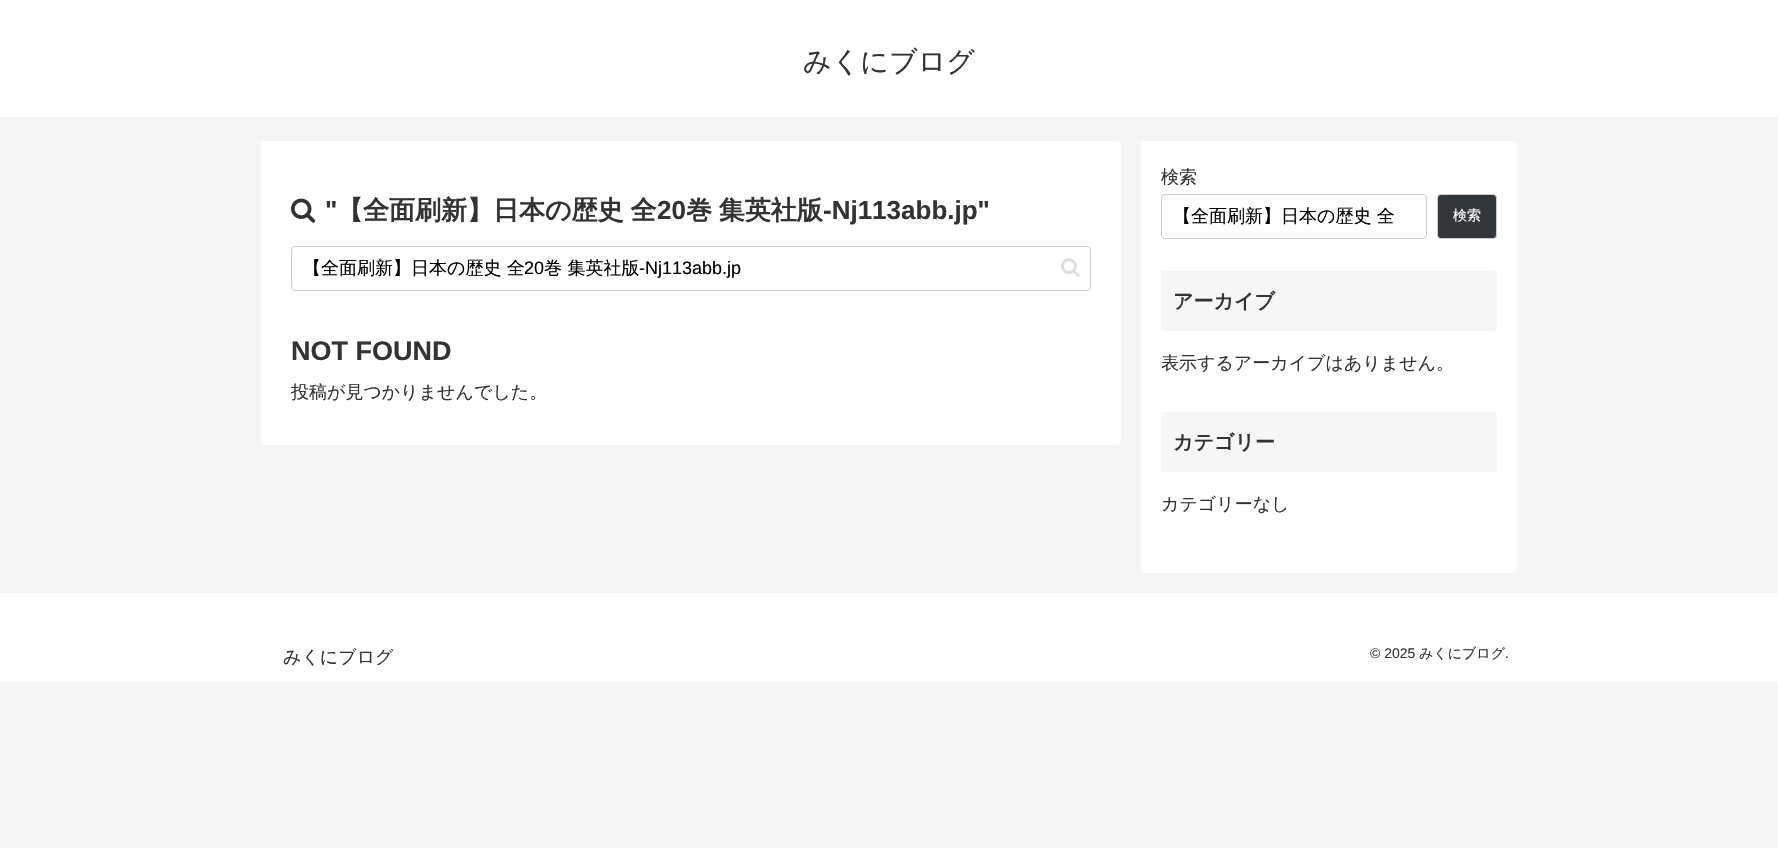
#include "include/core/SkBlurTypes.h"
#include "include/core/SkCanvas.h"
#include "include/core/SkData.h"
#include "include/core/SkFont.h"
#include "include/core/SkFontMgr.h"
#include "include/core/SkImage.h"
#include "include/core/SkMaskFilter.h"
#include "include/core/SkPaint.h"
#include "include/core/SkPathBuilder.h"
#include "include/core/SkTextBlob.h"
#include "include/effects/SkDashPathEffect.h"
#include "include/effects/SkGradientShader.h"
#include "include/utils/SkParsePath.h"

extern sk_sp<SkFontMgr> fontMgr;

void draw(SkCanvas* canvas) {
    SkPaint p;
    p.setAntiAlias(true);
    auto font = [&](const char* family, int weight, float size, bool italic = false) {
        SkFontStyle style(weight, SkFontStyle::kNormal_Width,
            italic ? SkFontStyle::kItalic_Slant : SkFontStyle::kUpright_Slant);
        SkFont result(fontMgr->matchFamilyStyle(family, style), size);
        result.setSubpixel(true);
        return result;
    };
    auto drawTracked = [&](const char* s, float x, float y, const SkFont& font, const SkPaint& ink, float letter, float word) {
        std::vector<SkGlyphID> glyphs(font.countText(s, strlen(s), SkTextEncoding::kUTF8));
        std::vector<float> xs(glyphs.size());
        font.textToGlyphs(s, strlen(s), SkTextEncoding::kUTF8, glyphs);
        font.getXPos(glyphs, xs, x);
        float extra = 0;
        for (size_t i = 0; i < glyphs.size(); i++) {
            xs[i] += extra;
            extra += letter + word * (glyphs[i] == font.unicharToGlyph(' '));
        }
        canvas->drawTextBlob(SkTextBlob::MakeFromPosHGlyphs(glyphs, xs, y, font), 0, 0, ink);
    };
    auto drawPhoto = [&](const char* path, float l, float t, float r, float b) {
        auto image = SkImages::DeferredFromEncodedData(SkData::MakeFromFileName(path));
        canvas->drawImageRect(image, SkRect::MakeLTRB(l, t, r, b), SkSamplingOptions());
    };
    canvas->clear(0xFFF4F5F7);
    p.setColor(0xFFFFFFFF);
    canvas->drawRect(SkRect::MakeLTRB(0, 0, 1778, 117), p);
    auto font1 = font("WenQuanYi Zen Hei", 500, 28);
    p.setColor(0xFF333333);
    canvas->drawString("みくにブログ", 803, 71, font1, p);
    p.setColor(0xFFFFFFFF);
    canvas->drawRoundRect(SkRect::MakeLTRB(261, 141, 1121, 445), 4, 4, p);
    drawPhoto("media/1.png", 291, 198, 316, 223);
    auto font2 = font("Liberation Sans", 700, 26);
    p.setColor(0xFF333333);
    canvas->drawString("\"", 325, 219, font2, p);
    auto font3 = font("WenQuanYi Zen Hei", 700, 26);
    drawTracked("【全面刷新】日本の歴史 全", 337, 219, font3, p, 0, -1);
    canvas->drawString("20", 657, 219, font2, p);
    drawTracked("巻 集英社版", 686, 219, font3, p, 0, -1);
    canvas->drawString("-Nj113abb.jp\"", 823, 219, font2, p);
    p.setStyle(SkPaint::kStroke_Style);
    p.setStrokeWidth(1);
    p.setColor(0xFFCCCCCC);
    canvas->drawRoundRect(SkRect::MakeLTRB(291.5f, 246.5f, 1090.5f, 290.5f), 3.5f, 3.5f, p);
    auto font4 = font("WenQuanYi Zen Hei", 500, 18);
    p.setStyle(SkPaint::kFill_Style);
    p.setColor(0xFF000000);
    canvas->drawString("【全面刷新】日本の歴史 全", 303, 274, font4, p);
    auto font5 = font("Liberation Sans", 400, 18);
    canvas->drawString("20", 524, 274, font5, p);
    canvas->drawString("巻 集英社版", 544, 274, font4, p);
    canvas->drawString("-Nj113abb.jp", 639, 274, font5, p);
    drawPhoto("media/2.png", 1061, 258, 1080, 277);
    auto font6 = font("Liberation Sans", 700, 27);
    p.setColor(0xFF333333);
    canvas->drawString("NOT FOUND", 291, 360, font6, p);
    canvas->drawString("投稿が見つかりませんでした。", 291, 398, font4, p);
    p.setColor(0xFFFFFFFF);
    canvas->drawRoundRect(SkRect::MakeLTRB(1141, 141, 1517, 573), 4, 4, p);
    p.setColor(0xFF333333);
    canvas->drawString("検索", 1161, 183, font4, p);
    p.setStyle(SkPaint::kStroke_Style);
    p.setColor(0xFFCCCCCC);
    canvas->drawRoundRect(SkRect::MakeLTRB(1161.5f, 194.5f, 1426.5f, 238.5f), 3.5f, 3.5f, p);
    p.setStyle(SkPaint::kFill_Style);
    p.setColor(0xFF000000);
    canvas->drawString("【全面刷新】日本の歴史 全", 1173, 222, font4, p);
    p.setColor(0xFF32373C);
    canvas->drawRoundRect(SkRect::MakeLTRB(1437.5f, 194.5f, 1496.5f, 238.5f), 3.5f, 3.5f, p);
    p.setStyle(SkPaint::kStroke_Style);
    p.setColor(0xFFCCCCCC);
    canvas->drawRoundRect(SkRect::MakeLTRB(1437.5f, 194.5f, 1496.5f, 238.5f), 3.5f, 3.5f, p);
    auto font7 = font("WenQuanYi Zen Hei", 500, 14);
    p.setStyle(SkPaint::kFill_Style);
    p.setColor(0xFFFFFFFF);
    canvas->drawString("検索", 1453, 220, font7, p);
    p.setColor(0xFFF5F6F7);
    canvas->drawRoundRect(SkRect::MakeLTRB(1161, 271, 1497, 331), 2, 2, p);
    auto font8 = font("WenQuanYi Zen Hei", 700, 20);
    p.setColor(0xFF333333);
    canvas->drawString("アーカイブ", 1173, 308, font8, p);
    canvas->drawString("表示するアーカイブはありません。", 1161, 369, font4, p);
    p.setColor(0xFFF5F6F7);
    canvas->drawRoundRect(SkRect::MakeLTRB(1161, 412, 1497, 472), 2, 2, p);
    p.setColor(0xFF333333);
    canvas->drawString("カテゴリー", 1173, 449, font8, p);
    canvas->drawString("カテゴリーなし", 1161, 510, font4, p);
    p.setColor(0xFFFFFFFF);
    canvas->drawRect(SkRect::MakeLTRB(0, 593, 1778, 682), p);
    p.setColor(0xFF333333);
    canvas->drawString("みくにブログ", 283, 663, font4, p);
    auto font9 = font("Liberation Sans", 400, 14);
    canvas->drawString("© 2025", 1370, 658, font9, p);
    canvas->drawString("みくにブログ", 1419, 658, font7, p);
    canvas->drawString(".", 1505, 658, font9, p);
}
